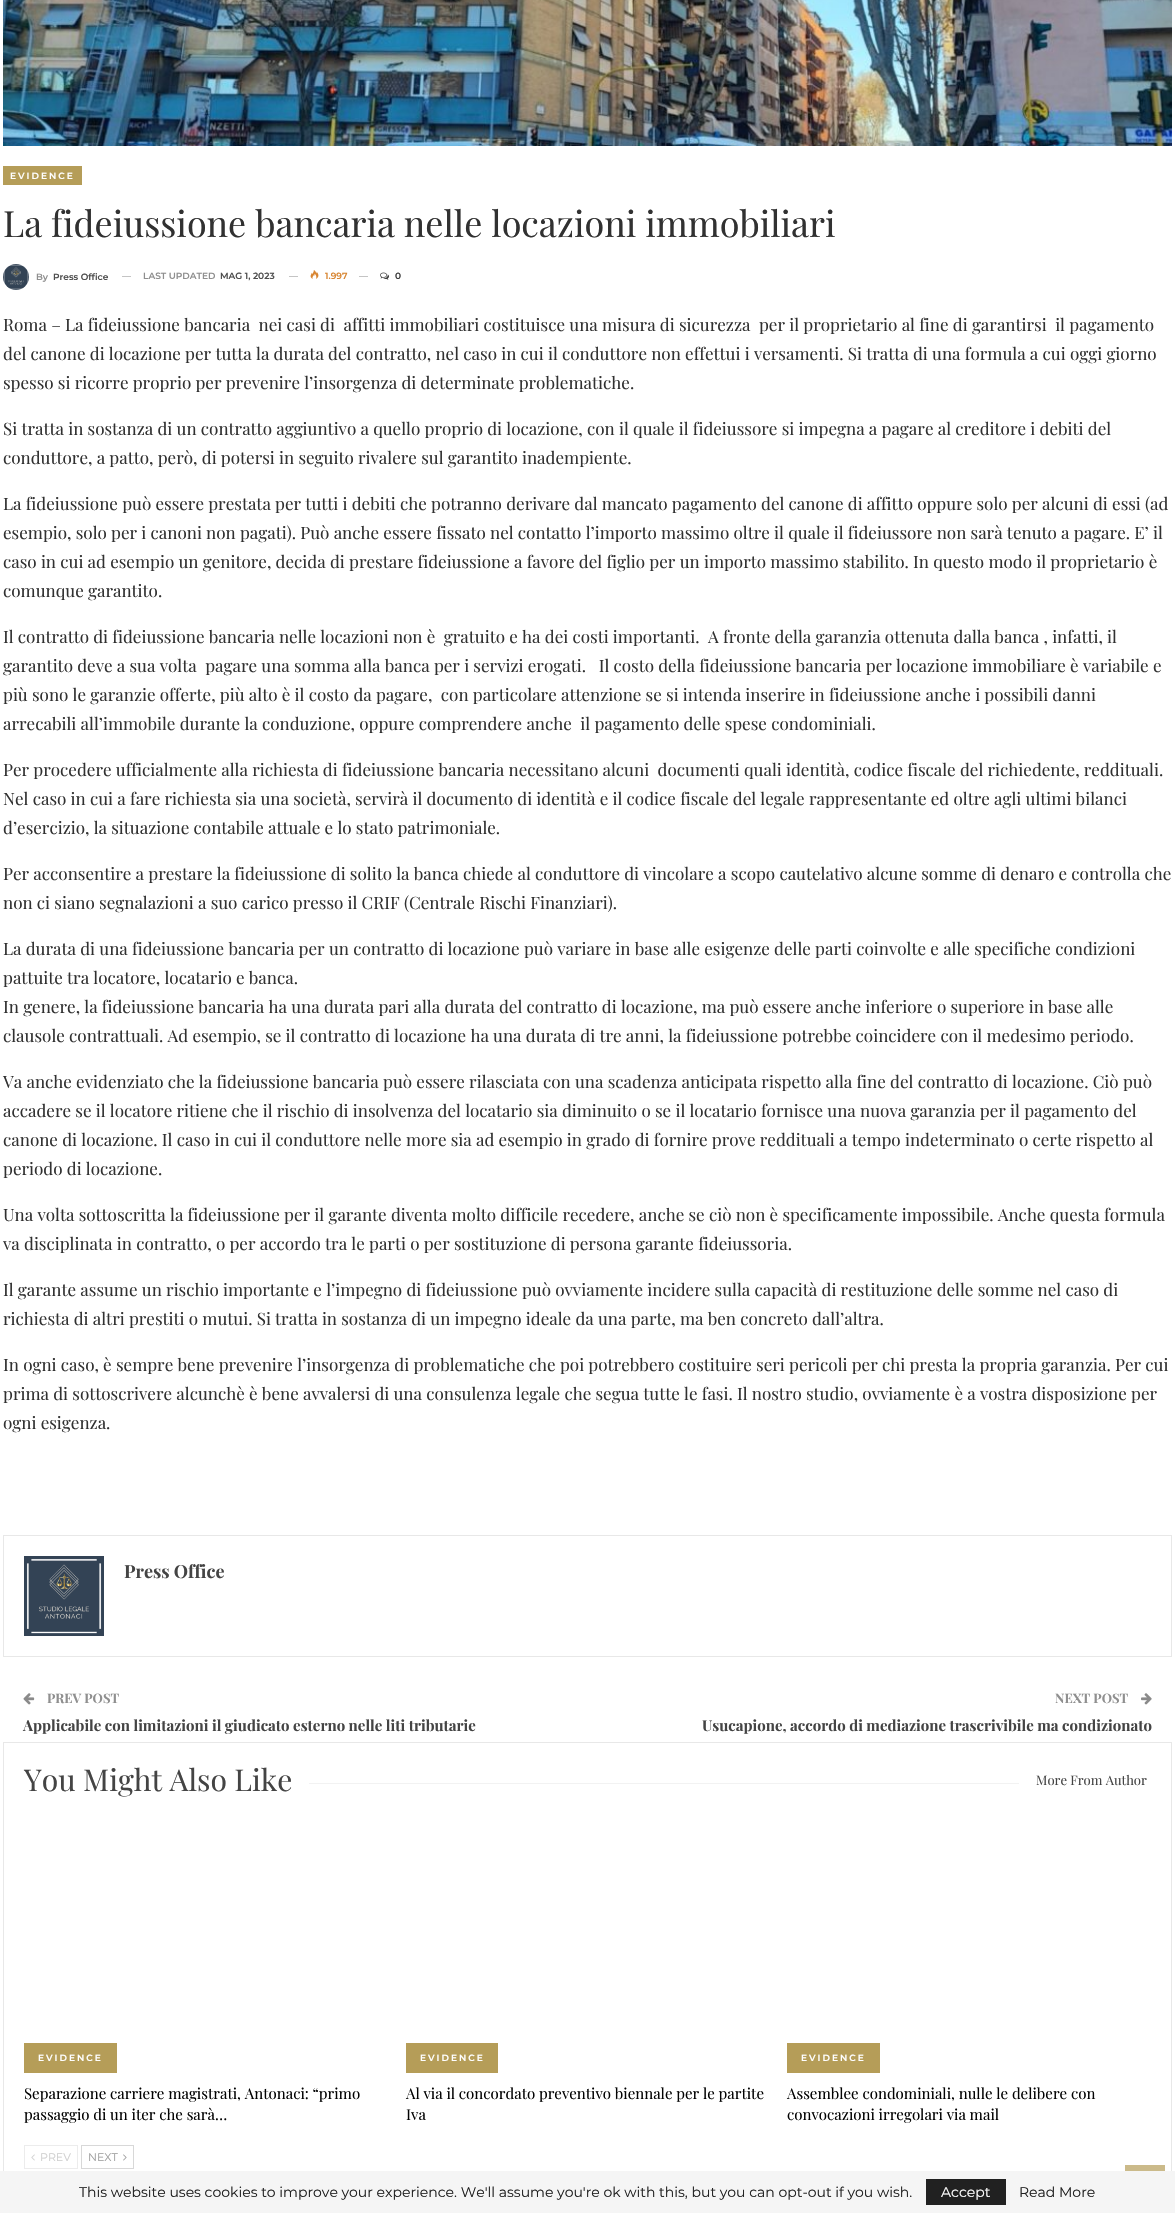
#include "include/core/SkBlurTypes.h"
#include "include/core/SkCanvas.h"
#include "include/core/SkData.h"
#include "include/core/SkFont.h"
#include "include/core/SkFontMgr.h"
#include "include/core/SkImage.h"
#include "include/core/SkMaskFilter.h"
#include "include/core/SkPaint.h"
#include "include/core/SkPathBuilder.h"
#include "include/core/SkTextBlob.h"
#include "include/effects/SkDashPathEffect.h"
#include "include/effects/SkGradientShader.h"
#include "include/utils/SkParsePath.h"

extern sk_sp<SkFontMgr> fontMgr;

void draw(SkCanvas* canvas) {
    SkPaint p;
    p.setAntiAlias(true);
    auto font = [&](const char* family, int weight, float size, bool italic = false) {
        SkFontStyle style(weight, SkFontStyle::kNormal_Width,
            italic ? SkFontStyle::kItalic_Slant : SkFontStyle::kUpright_Slant);
        SkFont result(fontMgr->matchFamilyStyle(family, style), size);
        result.setSubpixel(true);
        return result;
    };
    auto drawTracked = [&](const char* s, float x, float y, const SkFont& font, const SkPaint& ink, float letter, float word) {
        std::vector<SkGlyphID> glyphs(font.countText(s, strlen(s), SkTextEncoding::kUTF8));
        std::vector<float> xs(glyphs.size());
        font.textToGlyphs(s, strlen(s), SkTextEncoding::kUTF8, glyphs);
        font.getXPos(glyphs, xs, x);
        float extra = 0;
        for (size_t i = 0; i < glyphs.size(); i++) {
            xs[i] += extra;
            extra += letter + word * (glyphs[i] == font.unicharToGlyph(' '));
        }
        canvas->drawTextBlob(SkTextBlob::MakeFromPosHGlyphs(glyphs, xs, y, font), 0, 0, ink);
    };
    auto drawPhoto = [&](const char* path, float l, float t, float r, float b) {
        auto image = SkImages::DeferredFromEncodedData(SkData::MakeFromFileName(path));
        canvas->drawImageRect(image, SkRect::MakeLTRB(l, t, r, b), SkSamplingOptions());
    };
    canvas->clear(0xFFFFFFFF);
    drawPhoto("media/1.png", 3, 0, 1172, 146);
    p.setColor(0xFFB59D58);
    canvas->drawRect(SkRect::MakeLTRB(3, 166, 82, 185), p);
    auto font1 = font("Montserrat", 600, 9);
    p.setColor(0xFFFFFFFF);
    drawTracked("EVIDENCE", 10, 179, font1, p, 2, 0);
    auto font2 = font("Playfair Display", 400, 36);
    p.setColor(0xFF313131);
    canvas->drawString("La fideiussione bancaria nelle locazioni immobiliari", 3, 237, font2, p);
    drawPhoto("media/2.png", 3, 264, 29, 290);
    p.setColor(0xFF8F8F8F);
    canvas->drawString("By", 36, 280, font1, p);
    p.setColor(0xFF4D4D4D);
    canvas->drawString("Press Office", 53, 280, font1, p);
    p.setColor(0xFFC4C4C4);
    canvas->drawRect(SkRect::MakeLTRB(122, 276, 131, 277), p);
    p.setColor(0xFF8F8F8F);
    canvas->drawString("LAST UPDATED", 143, 279, font1, p);
    p.setColor(0xFF4D4D4D);
    canvas->drawString("MAG 1, 2023", 220, 279, font1, p);
    p.setColor(0xFFC4C4C4);
    canvas->drawRect(SkRect::MakeLTRB(289, 276, 298, 277), p);
    drawPhoto("media/3.png", 310, 270, 319, 279);
    p.setColor(0xFFD88531);
    canvas->drawString("1.997", 325, 279, font1, p);
    p.setColor(0xFFC4C4C4);
    canvas->drawRect(SkRect::MakeLTRB(359, 276, 368, 277), p);
    drawPhoto("media/4.png", 380, 272, 389, 280);
    p.setColor(0xFF3A3A3A);
    canvas->drawString("0", 395, 279, font1, p);
    auto font3 = font("Playfair Display", 400, 17);
    p.setColor(0xFF313131);
    {
        const struct { const char* s; float x, y; } items[] = {
            {"Roma – La fideiussione bancaria  nei casi di  affitti immobiliari costituisce una misura di sicurezza  per il proprietario al fine di garantirsi  il pagamento", 3, 331},
            {"del canone di locazione per tutta la durata del contratto, nel caso in cui il conduttore non effettui i versamenti. Si tratta di una formula a cui oggi giorno", 3, 360},
            {"spesso si ricorre proprio per prevenire l’insorgenza di determinate problematiche.", 3, 389},
            {"Si tratta in sostanza di un contratto aggiuntivo a quello proprio di locazione, con il quale il fideiussore si impegna a pagare al creditore i debiti del", 3, 435},
            {"conduttore, a patto, però, di potersi in seguito rivalere sul garantito inadempiente.", 3, 464},
            {"La fideiussione può essere prestata per tutti i debiti che potranno derivare dal mancato pagamento del canone di affitto oppure solo per alcuni di essi (ad", 3, 510},
            {"esempio, solo per i canoni non pagati). Può anche essere fissato nel contatto l’importo massimo oltre il quale il fideiussore non sarà tenuto a pagare. E’ il", 3, 539},
            {"caso in cui ad esempio un genitore, decida di prestare fideiussione a favore del figlio per un importo massimo stabilito. In questo modo il proprietario è", 3, 568},
            {"comunque garantito.", 3, 597},
            {"Il contratto di fideiussione bancaria nelle locazioni non è  gratuito e ha dei costi importanti.  A fronte della garanzia ottenuta dalla banca , infatti, il", 3, 643},
            {"garantito deve a sua volta  pagare una somma alla banca per i servizi erogati.   Il costo della fideiussione bancaria per locazione immobiliare è variabile e", 3, 672},
            {"più sono le garanzie offerte, più alto è il costo da pagare,  con particolare attenzione se si intenda inserire in fideiussione anche i possibili danni", 3, 701},
            {"arrecabili all’immobile durante la conduzione, oppure comprendere anche  il pagamento delle spese condominiali.", 3, 730},
            {"Per procedere ufficialmente alla richiesta di fideiussione bancaria necessitano alcuni  documenti quali identità, codice fiscale del richiedente, reddituali.", 3, 776},
            {"Nel caso in cui a fare richiesta sia una società, servirà il documento di identità e il codice fiscale del legale rappresentante ed oltre agli ultimi bilanci", 3, 805},
            {"d’esercizio, la situazione contabile attuale e lo stato patrimoniale.", 3, 834},
            {"Per acconsentire a prestare la fideiussione di solito la banca chiede al conduttore di vincolare a scopo cautelativo alcune somme di denaro e controlla che", 3, 880},
            {"non ci siano segnalazioni a suo carico presso il CRIF (Centrale Rischi Finanziari).", 3, 909},
            {"La durata di una fideiussione bancaria per un contratto di locazione può variare in base alle esigenze delle parti coinvolte e alle specifiche condizioni", 3, 955},
            {"pattuite tra locatore, locatario e banca.", 3, 984},
            {"In genere, la fideiussione bancaria ha una durata pari alla durata del contratto di locazione, ma può essere anche inferiore o superiore in base alle", 3, 1013},
            {"clausole contrattuali. Ad esempio, se il contratto di locazione ha una durata di tre anni, la fideiussione potrebbe coincidere con il medesimo periodo.", 3, 1042},
            {"Va anche evidenziato che la fideiussione bancaria può essere rilasciata con una scadenza anticipata rispetto alla fine del contratto di locazione. Ciò può", 3, 1088},
            {"accadere se il locatore ritiene che il rischio di insolvenza del locatario sia diminuito o se il locatario fornisce una nuova garanzia per il pagamento del", 3, 1117},
            {"canone di locazione. Il caso in cui il conduttore nelle more sia ad esempio in grado di fornire prove reddituali a tempo indeterminato o certe rispetto al", 3, 1146},
            {"periodo di locazione.", 3, 1175},
            {"Una volta sottoscritta la fideiussione per il garante diventa molto difficile recedere, anche se ciò non è specificamente impossibile. Anche questa formula", 3, 1221},
            {"va disciplinata in contratto, o per accordo tra le parti o per sostituzione di persona garante fideiussoria.", 3, 1250},
            {"Il garante assume un rischio importante e l’impegno di fideiussione può ovviamente incidere sulla capacità di restituzione delle somme nel caso di", 3, 1296},
            {"richiesta di altri prestiti o mutui. Si tratta in sostanza di un impegno ideale da una parte, ma ben concreto dall’altra.", 3, 1325},
            {"In ogni caso, è sempre bene prevenire l’insorgenza di problematiche che poi potrebbero costituire seri pericoli per chi presta la propria garanzia. Per cui", 3, 1371},
            {"prima di sottoscrivere alcunchè è bene avvalersi di una consulenza legale che segua tutte le fasi. Il nostro studio, ovviamente è a vostra disposizione per", 3, 1400},
            {"ogni esigenza.", 3, 1429},
        };
        for (auto [s, x, y] : items) {
            canvas->drawString(s, x, y, font3, p);
        }
    }
    p.setStyle(SkPaint::kStroke_Style);
    p.setStrokeWidth(1);
    p.setColor(0xFFE8E8E8);
    canvas->drawRect(SkRect::MakeLTRB(3.5f, 1535.5f, 1171.5f, 1656.5f), p);
    drawPhoto("media/5.png", 24, 1556, 104, 1636);
    auto font4 = font("Playfair Display", 700, 18);
    p.setStyle(SkPaint::kFill_Style);
    p.setColor(0xFF444444);
    canvas->drawString("Press Office", 124, 1578, font4, p);
    drawPhoto("media/6.png", 23, 1693, 35, 1705);
    auto font5 = font("Playfair Display", 700, 13);
    p.setColor(0xFF8F8F8F);
    canvas->drawString("PREV POST", 47, 1703, font5, p);
    auto font6 = font("Playfair Display", 700, 15);
    p.setColor(0xFF444444);
    canvas->drawString("Applicabile con limitazioni il giudicato esterno nelle liti tributarie", 23, 1731, font6, p);
    p.setColor(0xFF8F8F8F);
    canvas->drawString("NEXT POST", 1055, 1703, font5, p);
    drawPhoto("media/7.png", 1141, 1693, 1152, 1705);
    p.setColor(0xFF444444);
    canvas->drawString("Usucapione, accordo di mediazione trascrivibile ma condizionato", 702, 1731, font6, p);
    p.setStyle(SkPaint::kStroke_Style);
    p.setColor(0xFFE8E8E8);
    canvas->drawRect(SkRect::MakeLTRB(3.5f, 1742.5f, 1171.5f, 2189.5f), p);
    auto font7 = font("Playfair Display", 400, 30);
    p.setStyle(SkPaint::kFill_Style);
    p.setColor(0xFF444444);
    canvas->drawString("You Might Also Like", 24, 1791, font7, p);
    p.setColor(0xFFF2F2F2);
    canvas->drawRect(SkRect::MakeLTRB(309, 1783, 1019, 1784), p);
    auto font8 = font("Playfair Display", 400, 13.1f);
    p.setColor(0xFF444444);
    canvas->drawString("More From Author", 1036, 1785, font8, p);
    p.setColor(0xFFB59D58);
    canvas->drawRect(SkRect::MakeLTRB(24, 2043, 117, 2073), p);
    p.setColor(0xFFFFFFFF);
    drawTracked("EVIDENCE", 38, 2061, font1, p, 2, 0);
    auto font9 = font("Playfair Display", 400, 15);
    p.setColor(0xFF020202);
    canvas->drawString("Separazione carriere magistrati, Antonaci: “primo", 24, 2099, font9, p);
    canvas->drawString("passaggio di un iter che sarà…", 24, 2120, font9, p);
    p.setColor(0xFFB59D58);
    canvas->drawRect(SkRect::MakeLTRB(406, 2043, 498, 2073), p);
    p.setColor(0xFFFFFFFF);
    drawTracked("EVIDENCE", 420, 2061, font1, p, 2, 0);
    p.setColor(0xFF020202);
    canvas->drawString("Al via il concordato preventivo biennale per le partite", 406, 2099, font9, p);
    canvas->drawString("Iva", 406, 2120, font9, p);
    p.setColor(0xFFB59D58);
    canvas->drawRect(SkRect::MakeLTRB(787, 2043, 880, 2073), p);
    p.setColor(0xFFFFFFFF);
    drawTracked("EVIDENCE", 801, 2061, font1, p, 2, 0);
    p.setColor(0xFF020202);
    canvas->drawString("Assemblee condominiali, nulle le delibere con", 787, 2099, font9, p);
    canvas->drawString("convocazioni irregolari via mail", 787, 2120, font9, p);
    p.setStyle(SkPaint::kStroke_Style);
    p.setColor(0xFFECECEC);
    canvas->drawRect(SkRect::MakeLTRB(24.5f, 2145.5f, 77.5f, 2168.5f), p);
    drawPhoto("media/8.png", 31, 2154, 35, 2161);
    auto font10 = font("Montserrat", 400, 11);
    p.setStyle(SkPaint::kFill_Style);
    p.setColor(0xFFCFCFCF);
    canvas->drawString("PREV", 40, 2161, font10, p);
    p.setStyle(SkPaint::kStroke_Style);
    p.setColor(0xFFD8D8D8);
    canvas->drawRect(SkRect::MakeLTRB(81.5f, 2145.5f, 133.5f, 2168.5f), p);
    p.setStyle(SkPaint::kFill_Style);
    p.setColor(0xFF9E9E9E);
    canvas->drawString("NEXT", 88, 2161, font10, p);
    drawPhoto("media/9.png", 123, 2154, 127, 2161);
    p.setColor(0xB3B59D58);
    canvas->drawRect(SkRect::MakeLTRB(1125, 2165, 1165, 2171), p);
    p.setColor(0xFFF5F5F5);
    canvas->drawRect(SkRect::MakeLTRB(0, 2171, 1175, 2213), p);
    auto font11 = font("Montserrat", 400, 14);
    p.setColor(0xFF212121);
    canvas->drawString("This website uses cookies to improve your experience. We'll assume you're ok with this, but you can opt-out if you wish.", 79, 2197, font11, p);
    canvas->drawRect(SkRect::MakeLTRB(926, 2179, 1006, 2205), p);
    p.setColor(0xFFFFFFFF);
    canvas->drawString("Accept", 941, 2197, font11, p);
    p.setColor(0xFF212121);
    canvas->drawString("Read More", 1019, 2197, font11, p);
}
